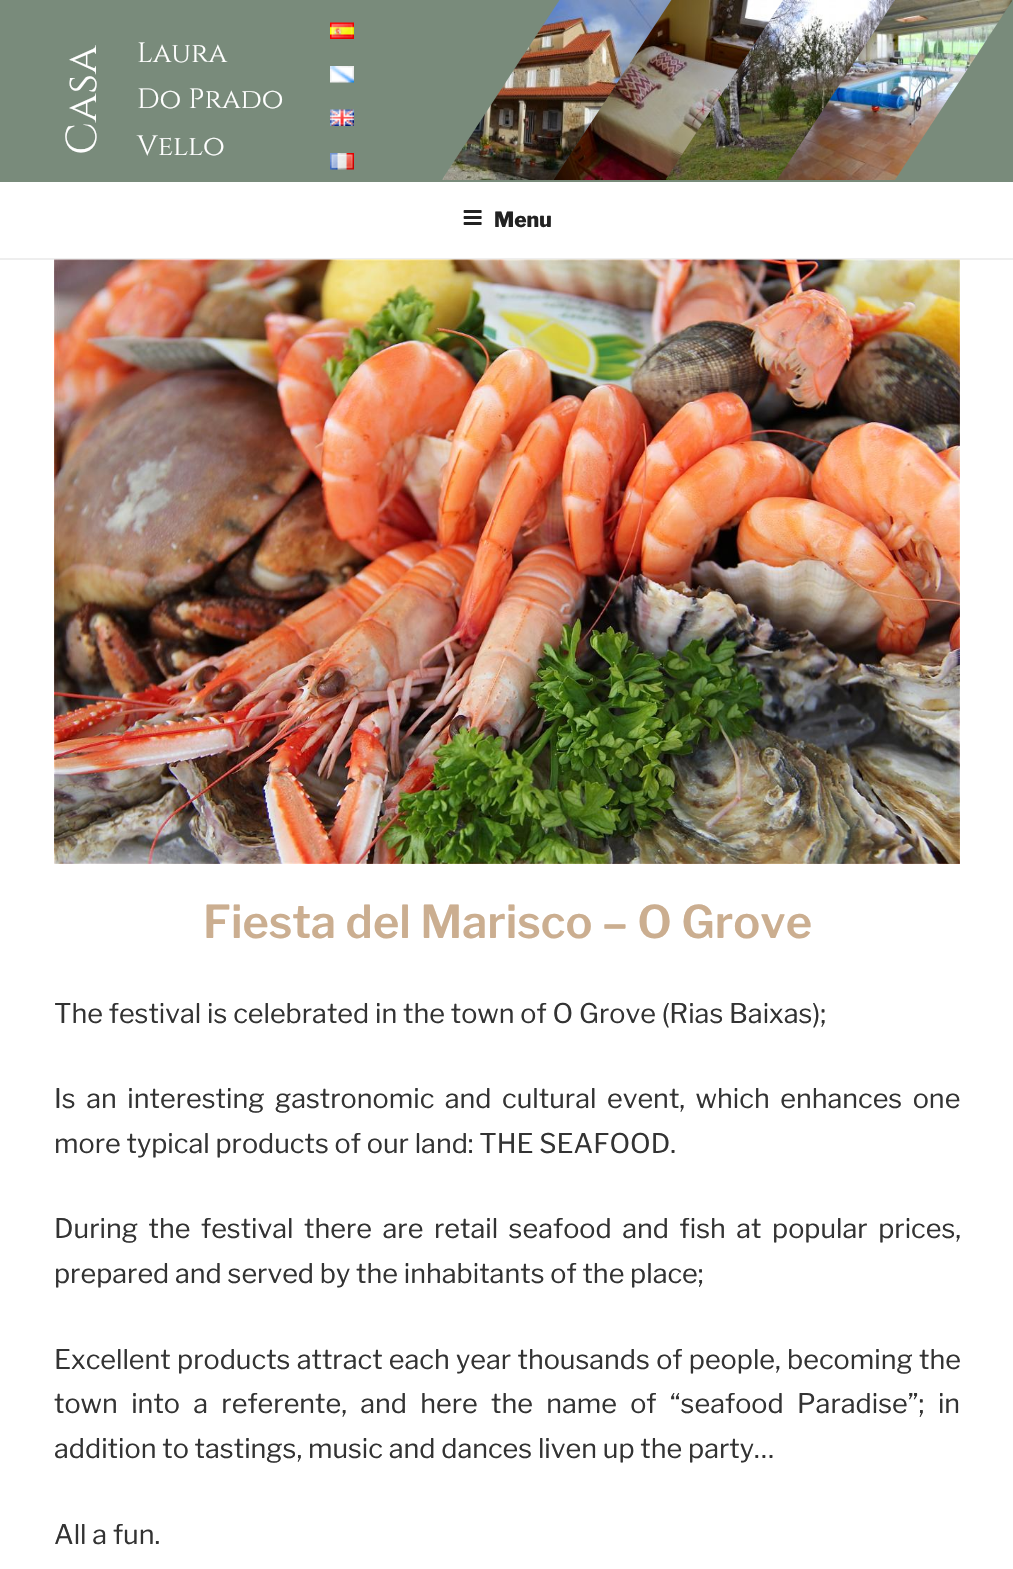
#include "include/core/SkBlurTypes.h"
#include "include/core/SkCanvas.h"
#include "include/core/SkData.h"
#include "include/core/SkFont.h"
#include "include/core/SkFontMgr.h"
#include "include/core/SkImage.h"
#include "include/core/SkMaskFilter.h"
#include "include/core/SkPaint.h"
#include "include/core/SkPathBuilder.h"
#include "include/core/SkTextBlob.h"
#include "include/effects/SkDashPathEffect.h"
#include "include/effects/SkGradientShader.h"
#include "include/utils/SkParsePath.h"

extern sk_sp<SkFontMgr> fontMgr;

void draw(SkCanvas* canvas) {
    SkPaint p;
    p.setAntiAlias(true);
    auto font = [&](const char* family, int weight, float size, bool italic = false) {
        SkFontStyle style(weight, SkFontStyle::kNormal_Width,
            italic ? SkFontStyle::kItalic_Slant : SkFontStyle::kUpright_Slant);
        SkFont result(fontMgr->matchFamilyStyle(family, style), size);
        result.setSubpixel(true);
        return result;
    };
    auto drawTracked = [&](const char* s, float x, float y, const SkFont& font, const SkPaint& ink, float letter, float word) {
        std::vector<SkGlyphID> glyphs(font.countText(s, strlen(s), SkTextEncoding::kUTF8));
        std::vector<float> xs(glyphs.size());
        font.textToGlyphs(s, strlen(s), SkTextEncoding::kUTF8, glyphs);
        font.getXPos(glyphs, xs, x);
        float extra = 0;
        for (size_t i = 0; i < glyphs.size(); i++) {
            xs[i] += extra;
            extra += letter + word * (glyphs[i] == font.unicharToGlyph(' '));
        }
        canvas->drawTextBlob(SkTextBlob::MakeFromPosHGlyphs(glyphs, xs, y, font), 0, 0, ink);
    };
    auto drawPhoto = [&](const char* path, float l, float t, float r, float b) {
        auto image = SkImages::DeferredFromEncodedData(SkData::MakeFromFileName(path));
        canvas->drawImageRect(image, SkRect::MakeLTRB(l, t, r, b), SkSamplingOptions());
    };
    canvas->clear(0xFFFFFFFF);
    p.setColor(0xFF798B7B);
    canvas->drawRect(SkRect::MakeLTRB(0, 0, 1013, 182), p);
    auto font1 = font("Cinzel", 400, 43);
    p.setColor(0xFFFFFFFF);
    canvas->save();
    canvas->rotate(-90, 96, 155);
    canvas->drawString("Casa", 96, 155, font1, p);
    canvas->restore();
    auto font2 = font("Cinzel", 400, 28);
    {
        const struct { const char* s; float x, y; } items[] = {
            {"Laura", 137, 62},
            {"Do Prado", 137, 108},
            {"Vello", 137, 155},
        };
        for (auto [s, x, y] : items) {
            canvas->drawString(s, x, y, font2, p);
        }
    }
    drawPhoto("media/1.png", 442, 0, 672, 180);
    drawPhoto("media/2.png", 554, 0, 784, 180);
    drawPhoto("media/3.png", 666, 0, 895, 180);
    drawPhoto("media/4.png", 777, 0, 1013, 180);
    drawPhoto("media/5.png", 330, 22, 354, 39);
    drawPhoto("media/6.png", 330, 66, 354, 83);
    drawPhoto("media/7.png", 330, 109, 354, 126);
    drawPhoto("media/8.png", 330, 153, 354, 170);
    p.setColor(0xFFEEEEEE);
    canvas->drawRect(SkRect::MakeLTRB(0, 258, 1013, 260), p);
    drawPhoto("media/9.png", 463, 210, 482, 225);
    auto font3 = font("Libre Franklin", 800, 21);
    p.setColor(0xFF222222);
    canvas->drawString("Menu", 494, 227, font3, p);
    drawPhoto("media/10.png", 54, 259, 960, 864);
    auto font4 = font("Libre Franklin", 600, 45);
    p.setColor(0xFFCBAE90);
    canvas->drawString("Fiesta del Marisco – O Grove", 203, 938, font4, p);
    auto font5 = font("Libre Franklin", 400, 27);
    p.setColor(0xFF333333);
    canvas->drawString("The festival is celebrated in the town of O Grove (Rias Baixas);", 54, 1023, font5, p);
    drawTracked("Is an interesting gastronomic and cultural event, which enhances one", 54, 1108, font5, p, 0, 4.75f);
    canvas->drawString("more typical products of our land: THE SEAFOOD.", 54, 1153, font5, p);
    drawTracked("During the festival there are retail seafood and fish at popular prices,", 54, 1238, font5, p, 0, 4.75f);
    canvas->drawString("prepared and served by the inhabitants of the place;", 54, 1283, font5, p);
    drawTracked("Excellent products attract each year thousands of people, becoming the", 54, 1369, font5, p, 0, 0.5f);
    drawTracked("town into a referente, and here the name of “seafood Paradise”; in", 54, 1413, font5, p, 0, 7.5f);
    canvas->drawString("addition to tastings, music and dances liven up the party…", 54, 1458, font5, p);
    canvas->drawString("All a fun.", 54, 1544, font5, p);
}
